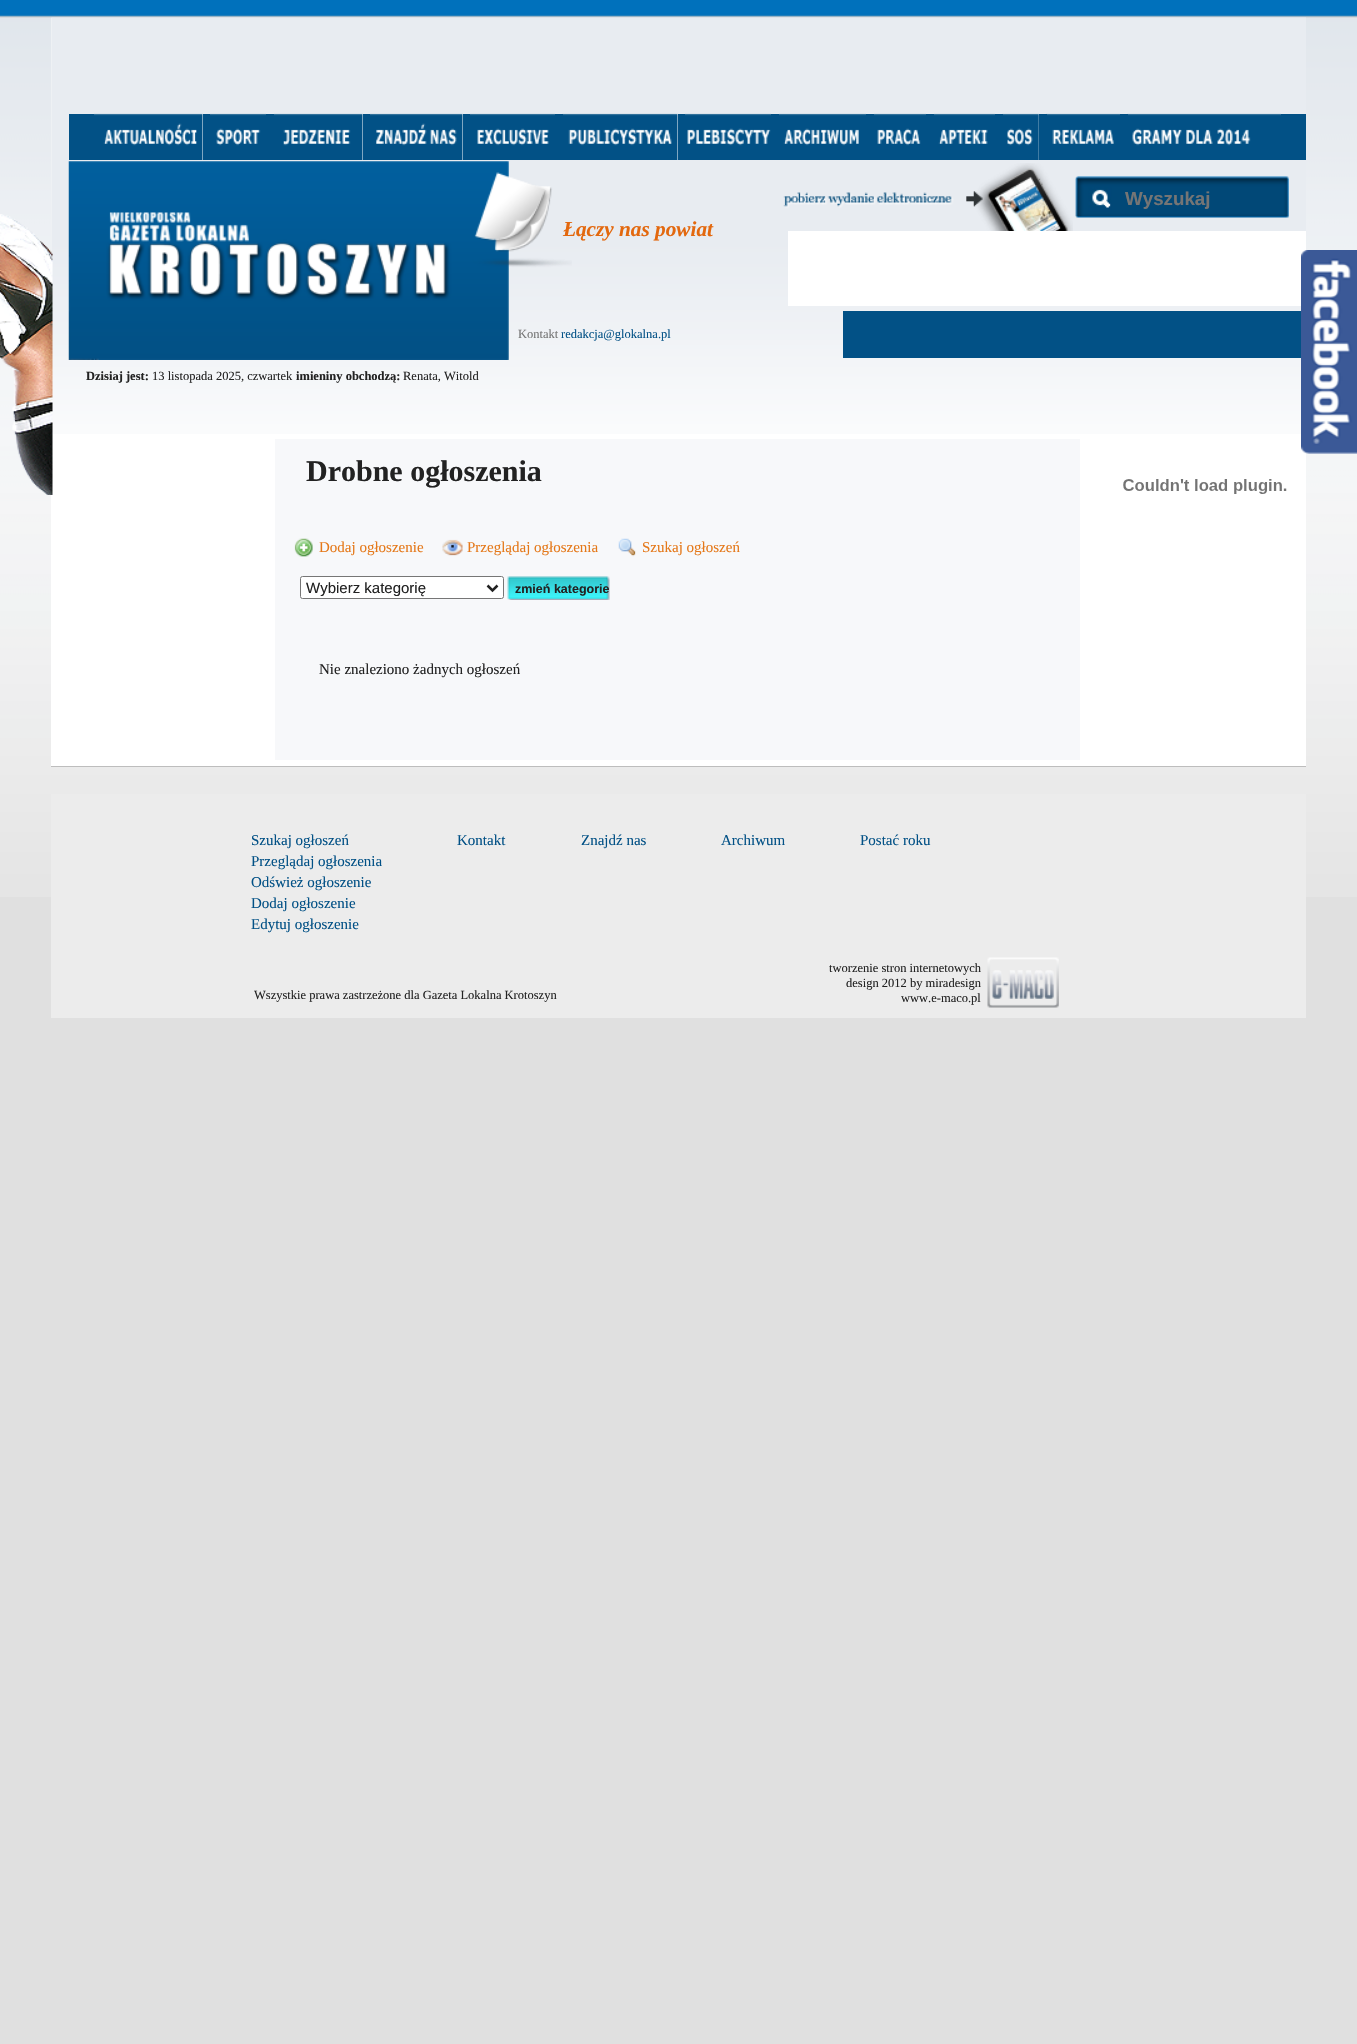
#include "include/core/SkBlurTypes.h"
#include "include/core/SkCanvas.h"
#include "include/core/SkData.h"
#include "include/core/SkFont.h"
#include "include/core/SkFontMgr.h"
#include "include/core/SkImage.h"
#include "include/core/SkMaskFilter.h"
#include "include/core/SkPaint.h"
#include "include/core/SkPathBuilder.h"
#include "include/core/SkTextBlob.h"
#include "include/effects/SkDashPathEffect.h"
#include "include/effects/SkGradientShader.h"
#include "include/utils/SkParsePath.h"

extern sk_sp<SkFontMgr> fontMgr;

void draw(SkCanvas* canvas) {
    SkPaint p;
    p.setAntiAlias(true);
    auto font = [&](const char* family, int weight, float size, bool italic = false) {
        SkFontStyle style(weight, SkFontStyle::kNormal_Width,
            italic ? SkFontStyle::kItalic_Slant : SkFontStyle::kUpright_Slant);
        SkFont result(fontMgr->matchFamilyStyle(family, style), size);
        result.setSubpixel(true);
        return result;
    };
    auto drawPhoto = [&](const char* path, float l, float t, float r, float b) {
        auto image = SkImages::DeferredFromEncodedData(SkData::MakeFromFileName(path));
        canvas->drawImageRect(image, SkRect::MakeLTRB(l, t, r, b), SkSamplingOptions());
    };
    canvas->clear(0xFFE0E0E0);
    drawPhoto("media/1.png", 0, 17, 1357, 897);
    drawPhoto("media/2.png", 0, 0, 1357, 18);
    p.setColor(0xFFFFFFFF);
    canvas->drawRect(SkRect::MakeLTRB(51, 18, 1306, 766), p);
    drawPhoto("media/3.png", 51, 17, 1306, 434);
    p.setColor(0xFF025186);
    canvas->drawRect(SkRect::MakeLTRB(69, 114, 1306, 160), p);
    p.setColor(0xFFFFFFFF);
    canvas->drawRect(SkRect::MakeLTRB(94, 114, 203, 160), p);
    drawPhoto("media/4.png", 94, 113, 203, 160);
    canvas->drawRect(SkRect::MakeLTRB(210, 114, 266, 146), p);
    drawPhoto("media/5.png", 210, 113, 266, 160);
    canvas->drawRect(SkRect::MakeLTRB(274, 114, 363, 160), p);
    drawPhoto("media/6.png", 274, 113, 363, 160);
    canvas->drawRect(SkRect::MakeLTRB(370, 114, 463, 160), p);
    drawPhoto("media/7.png", 370, 113, 463, 160);
    canvas->drawRect(SkRect::MakeLTRB(470, 114, 555, 146), p);
    drawPhoto("media/8.png", 470, 113, 555, 160);
    canvas->drawRect(SkRect::MakeLTRB(563, 114, 678, 160), p);
    drawPhoto("media/9.png", 562, 113, 678, 160);
    canvas->drawRect(SkRect::MakeLTRB(685, 114, 771, 146), p);
    drawPhoto("media/10.png", 685, 113, 771, 160);
    canvas->drawRect(SkRect::MakeLTRB(779, 114, 866, 146), p);
    drawPhoto("media/11.png", 779, 113, 866, 160);
    canvas->drawRect(SkRect::MakeLTRB(874, 114, 926, 146), p);
    drawPhoto("media/12.png", 874, 113, 926, 160);
    canvas->drawRect(SkRect::MakeLTRB(934, 114, 995, 144), p);
    drawPhoto("media/13.png", 934, 113, 995, 160);
    canvas->drawRect(SkRect::MakeLTRB(1003, 114, 1039, 160), p);
    drawPhoto("media/14.png", 1002, 113, 1039, 160);
    canvas->drawRect(SkRect::MakeLTRB(1047, 114, 1120, 144), p);
    drawPhoto("media/15.png", 1046, 113, 1120, 160);
    canvas->drawRect(SkRect::MakeLTRB(1128, 114, 1281, 146), p);
    drawPhoto("media/16.png", 1127, 113, 1281, 160);
    drawPhoto("media/17.png", 0, 214, 53, 495);
    drawPhoto("media/18.png", 68, 161, 572, 360);
    drawPhoto("media/19.png", 783, 163, 1073, 231);
    drawPhoto("media/20.png", 1075, 176, 1289, 218);
    auto font1 = font("Liberation Sans", 700, 18.75f);
    p.setColor(0xFF757575);
    canvas->drawString("Wyszukaj", 1125, 205, font1, p);
    p.setColor(0xFFFFFFFF);
    canvas->drawRect(SkRect::MakeLTRB(788, 231, 1306, 306), p);
    auto font2 = font("Liberation Serif", 700, 21.25f, true);
    p.setColor(0xFFE3680E);
    canvas->drawString("Łączy nas powiat", 563, 236, font2, p);
    auto font3 = font("Liberation Serif", 400, 12.5f);
    p.setColor(0xFF757575);
    canvas->drawString("Kontakt", 518, 338, font3, p);
    p.setColor(0xFF025186);
    canvas->drawString("redakcja@glokalna.pl", 561, 338, font3, p);
    canvas->drawRect(SkRect::MakeLTRB(843, 311, 1301, 358), p);
    auto font4 = font("Liberation Serif", 700, 12.5f);
    p.setColor(0xFF222222);
    canvas->drawString("Dzisiaj jest:", 86, 380, font4, p);
    canvas->drawString("13 listopada 2025, czwartek", 152, 380, font3, p);
    canvas->drawString("imieniny obchodzą:", 296, 380, font4, p);
    canvas->drawString("Renata, Witold", 403, 380, font3, p);
    p.setColor(0xFFF7F8FA);
    canvas->drawRect(SkRect::MakeLTRB(275, 439, 1080, 760), p);
    auto font5 = font("Liberation Serif", 700, 30);
    p.setColor(0xFF222222);
    canvas->drawString("Drobne ogłoszenia", 306, 481, font5, p);
    drawPhoto("media/21.png", 294, 538, 313, 557);
    auto font6 = font("Liberation Serif", 400, 15);
    p.setColor(0xFFE57819);
    canvas->drawString("Dodaj ogłoszenie", 319, 552, font6, p);
    drawPhoto("media/22.png", 442, 539, 463, 556);
    canvas->drawString("Przeglądaj ogłoszenia", 467, 552, font6, p);
    drawPhoto("media/23.png", 618, 538, 636, 557);
    canvas->drawString("Szukaj ogłoszeń", 642, 552, font6, p);
    p.setColor(0xFFFFFFFF);
    canvas->drawRoundRect(SkRect::MakeLTRB(300.5f, 576.5f, 503.5f, 598.5f), 2, 2, p);
    p.setStyle(SkPaint::kStroke_Style);
    p.setStrokeWidth(1);
    p.setColor(0xFF767676);
    canvas->drawRoundRect(SkRect::MakeLTRB(300.5f, 576.5f, 503.5f, 598.5f), 2, 2, p);
    p.setStrokeWidth(2.5f);
    p.setColor(0xFF222222);
    canvas->drawPath(SkPathBuilder().moveTo(487.5f, 585.5f).lineTo(492.5f, 590.5f).lineTo(497.5f, 585.5f).detach(), p);
    auto font7 = font("Liberation Sans", 400, 15);
    p.setStyle(SkPaint::kFill_Style);
    canvas->drawString("Wybierz kategorię", 306, 593, font7, p);
    drawPhoto("media/24.png", 507, 576, 610, 600);
    auto font8 = font("Liberation Sans", 700, 12.5f);
    canvas->drawString("zmień kategorie", 515, 593, font8, p);
    canvas->drawString("Nie znaleziono żadnych ogłoszeń", 319, 674, font6, p);
    drawPhoto("media/25.png", 1123, 479, 1287, 494);
    drawPhoto("media/26.png", 1301, 250, 1357, 454);
    p.setColor(0xFFECECEC);
    canvas->drawRect(SkRect::MakeLTRB(51, 794, 1306, 1018), p);
    p.setColor(0xFFBDBDBD);
    canvas->drawRect(SkRect::MakeLTRB(51, 766, 1306, 767), p);
    p.setColor(0xFF025186);
    {
        const struct { const char* s; float x, y; } items[] = {
            {"Szukaj ogłoszeń", 251, 845},
            {"Przeglądaj ogłoszenia", 251, 866},
            {"Odśwież ogłoszenie", 251, 887},
            {"Dodaj ogłoszenie", 251, 908},
            {"Edytuj ogłoszenie", 251, 929},
            {"Kontakt", 457, 845},
            {"Znajdź nas", 581, 845},
            {"Archiwum", 721, 845},
            {"Postać roku", 860, 845},
        };
        for (auto [s, x, y] : items) {
            canvas->drawString(s, x, y, font6, p);
        }
    }
    p.setColor(0xFF222222);
    {
        const struct { const char* s; float x, y; } items[] = {
            {"Wszystkie prawa zastrzeżone dla Gazeta Lokalna Krotoszyn", 254, 999},
            {"tworzenie stron internetowych", 829, 972},
            {"design 2012 by miradesign", 846, 987},
            {"www.e-maco.pl", 901, 1002},
        };
        for (auto [s, x, y] : items) {
            canvas->drawString(s, x, y, font3, p);
        }
    }
    drawPhoto("media/27.png", 987, 957, 1059, 1008);
}
